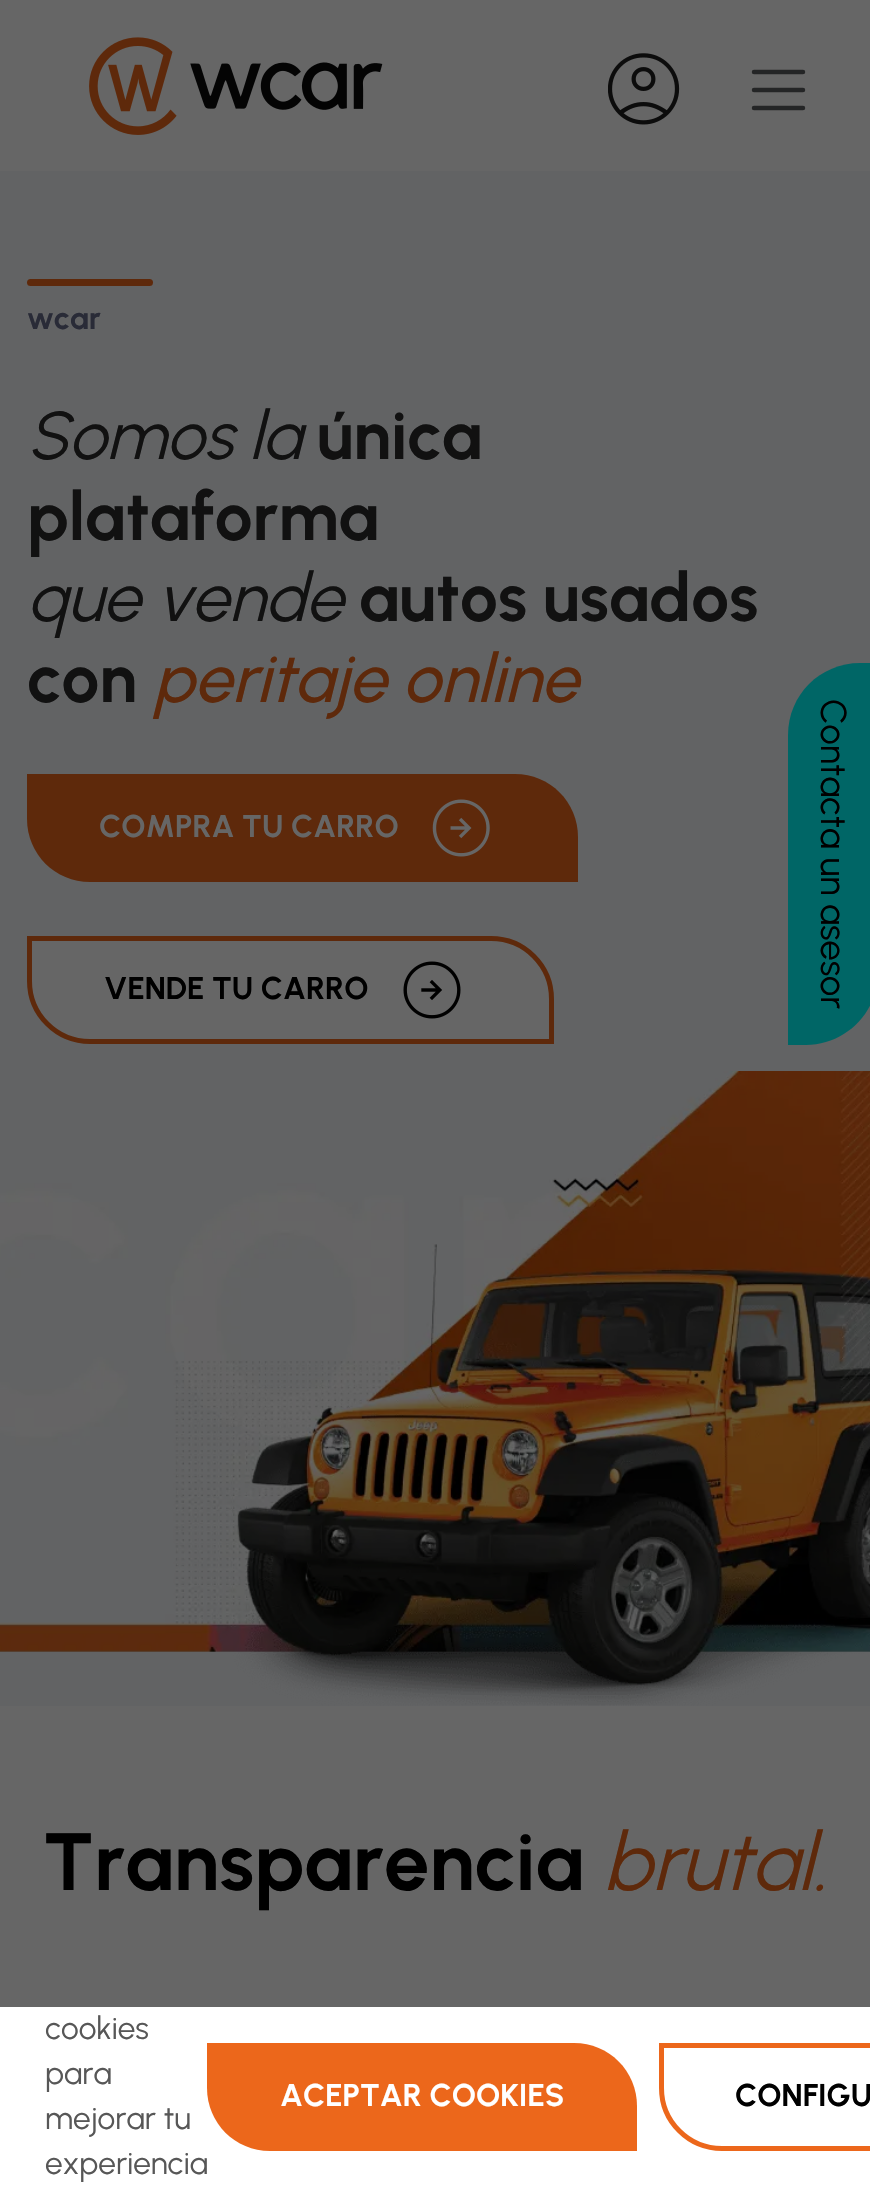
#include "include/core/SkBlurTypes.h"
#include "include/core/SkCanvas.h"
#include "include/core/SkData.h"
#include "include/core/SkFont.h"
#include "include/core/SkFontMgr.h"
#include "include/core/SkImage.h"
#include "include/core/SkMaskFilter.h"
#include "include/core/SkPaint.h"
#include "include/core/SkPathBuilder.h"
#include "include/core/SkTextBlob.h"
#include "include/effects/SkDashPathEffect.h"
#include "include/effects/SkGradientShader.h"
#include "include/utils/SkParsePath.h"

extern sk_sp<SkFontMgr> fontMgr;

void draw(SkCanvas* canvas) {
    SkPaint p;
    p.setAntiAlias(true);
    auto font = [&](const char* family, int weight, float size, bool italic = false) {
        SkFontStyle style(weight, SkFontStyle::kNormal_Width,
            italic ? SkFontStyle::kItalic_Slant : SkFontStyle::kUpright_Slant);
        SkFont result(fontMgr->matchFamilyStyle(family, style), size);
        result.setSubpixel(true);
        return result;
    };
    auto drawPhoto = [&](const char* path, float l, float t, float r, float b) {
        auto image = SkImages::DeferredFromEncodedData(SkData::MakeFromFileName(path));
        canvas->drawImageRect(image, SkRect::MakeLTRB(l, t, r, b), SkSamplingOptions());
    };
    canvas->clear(0xFF666666);
    drawPhoto("media/1.png", 89, 37, 383, 135);
    drawPhoto("media/2.png", 608, 53, 680, 125);
    p.setStyle(SkPaint::kStroke_Style);
    p.setStrokeWidth(4.5f);
    p.setStrokeCap(SkPaint::kRound_Cap);
    p.setColor(0xFF242526);
    canvas->drawPath(SkPathBuilder().moveTo(754, 72).lineTo(803, 72).moveTo(754, 90).lineTo(803, 90).moveTo(754, 108).lineTo(803, 108).detach(), p);
    p.setStyle(SkPaint::kFill_Style);
    p.setColor(0xFF626364);
    canvas->drawRect(SkRect::MakeLTRB(0, 171, 870, 1706), p);
    p.setColor(0xFF5E290B);
    canvas->drawRoundRect(SkRect::MakeLTRB(27, 279, 153, 286), 3.5f, 3.5f, p);
    auto font1 = font("Urbanist", 700, 31.5f);
    p.setColor(0xFF292B37);
    canvas->drawString("wcar", 27, 329, font1, p);
    auto font2 = font("Urbanist", 400, 67.5f, true);
    p.setColor(0xFF111111);
    canvas->drawString("Somos la", 27, 459, font2, p);
    auto font3 = font("Urbanist", 700, 67.5f);
    canvas->drawString("única", 317, 459, font3, p);
    canvas->drawString("plataforma", 27, 540, font3, p);
    canvas->drawString("que vende", 27, 621, font2, p);
    canvas->drawString("autos usados", 359, 621, font3, p);
    canvas->drawString("con", 27, 702, font3, p);
    auto font4 = font("Urbanist", 500, 67.5f, true);
    p.setColor(0xFF5E290B);
    canvas->drawString("peritaje online", 153, 702, font4, p);
    canvas->drawPath(SkPathBuilder().moveTo(27, 774).lineTo(515, 774).cubicTo(550, 774, 578, 802, 578, 837).lineTo(578, 882).lineTo(90, 882).cubicTo(55, 882, 27, 854, 27, 819).close().detach(), p);
    p.setColor(0xFF666666);
    canvas->drawString("COMPRA TU CARRO", 99, 837, font1, p);
    drawPhoto("media/3.png", 432, 799, 490, 857);
    canvas->drawPath(SkPathBuilder().moveTo(29.5f, 938.5f).lineTo(491, 938.5f).cubicTo(524.5f, 938.5f, 551.5f, 965.5f, 551.5f, 999).lineTo(551.5f, 1041.5f).lineTo(90, 1041.5f).cubicTo(56.5f, 1041.5f, 29.5f, 1014.5f, 29.5f, 981).close().detach(), p);
    p.setStyle(SkPaint::kStroke_Style);
    p.setStrokeWidth(5);
    p.setStrokeCap(SkPaint::kButt_Cap);
    p.setColor(0xFF5E290B);
    canvas->drawPath(SkPathBuilder().moveTo(29.5f, 938.5f).lineTo(491, 938.5f).cubicTo(524.5f, 938.5f, 551.5f, 965.5f, 551.5f, 999).lineTo(551.5f, 1041.5f).lineTo(90, 1041.5f).cubicTo(56.5f, 1041.5f, 29.5f, 1014.5f, 29.5f, 981).close().detach(), p);
    p.setStyle(SkPaint::kFill_Style);
    p.setColor(0xFF000000);
    canvas->drawString("VENDE TU CARRO", 104, 999, font1, p);
    drawPhoto("media/4.png", 403, 961, 461, 1019);
    drawPhoto("media/5.png", 0, 1071, 870, 1706);
    auto font5 = font("Urbanist", 700, 81);
    canvas->drawString("Transparencia", 43, 1890, font5, p);
    auto font6 = font("Urbanist", 400, 81, true);
    p.setColor(0xFF5E290B);
    canvas->drawString("brutal.", 603, 1890, font6, p);
    p.setColor(0xFFFFFFFF);
    canvas->drawRect(SkRect::MakeLTRB(0, 2007, 870, 2186), p);
    auto font7 = font("Urbanist", 400, 31.5f);
    p.setColor(0xFF575757);
    {
        const struct { const char* s; float x, y; } items[] = {
            {"cookies", 45, 2039},
            {"para", 45, 2084},
            {"mejorar tu", 45, 2129},
            {"experiencia", 45, 2174},
        };
        for (auto [s, x, y] : items) {
            canvas->drawString(s, x, y, font7, p);
        }
    }
    p.setColor(0xFFEC671B);
    canvas->drawPath(SkPathBuilder().moveTo(207, 2043).lineTo(574, 2043).cubicTo(609, 2043, 637, 2071, 637, 2106).lineTo(637, 2151).lineTo(270, 2151).cubicTo(235, 2151, 207, 2123, 207, 2088).close().detach(), p);
    p.setColor(0xFFFFFFFF);
    canvas->drawString("ACEPTAR COOKIES", 280, 2106, font1, p);
    p.setStyle(SkPaint::kStroke_Style);
    p.setColor(0xFFEC671B);
    canvas->drawPath(SkPathBuilder().moveTo(661.5f, 2045.5f).lineTo(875, 2045.5f).cubicTo(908.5f, 2045.5f, 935.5f, 2072.5f, 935.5f, 2106).lineTo(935.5f, 2148.5f).lineTo(722, 2148.5f).cubicTo(688.5f, 2148.5f, 661.5f, 2121.5f, 661.5f, 2088).close().detach(), p);
    p.setStyle(SkPaint::kFill_Style);
    p.setColor(0xFF000000);
    canvas->drawString("CONFIGU", 735, 2106, font1, p);
    p.setColor(0xFF006666);
    canvas->drawPath(SkPathBuilder().moveTo(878, 663).lineTo(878, 973).cubicTo(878, 1013, 845, 1045, 806, 1045).lineTo(788, 1045).lineTo(788, 735).cubicTo(788, 695, 820, 663, 860, 663).close().detach(), p);
    auto font8 = font("Urbanist", 400, 36);
    p.setColor(0xFF000000);
    canvas->save();
    canvas->rotate(90, 821, 699);
    canvas->drawString("Contacta un asesor", 821, 699, font8, p);
    canvas->restore();
}
